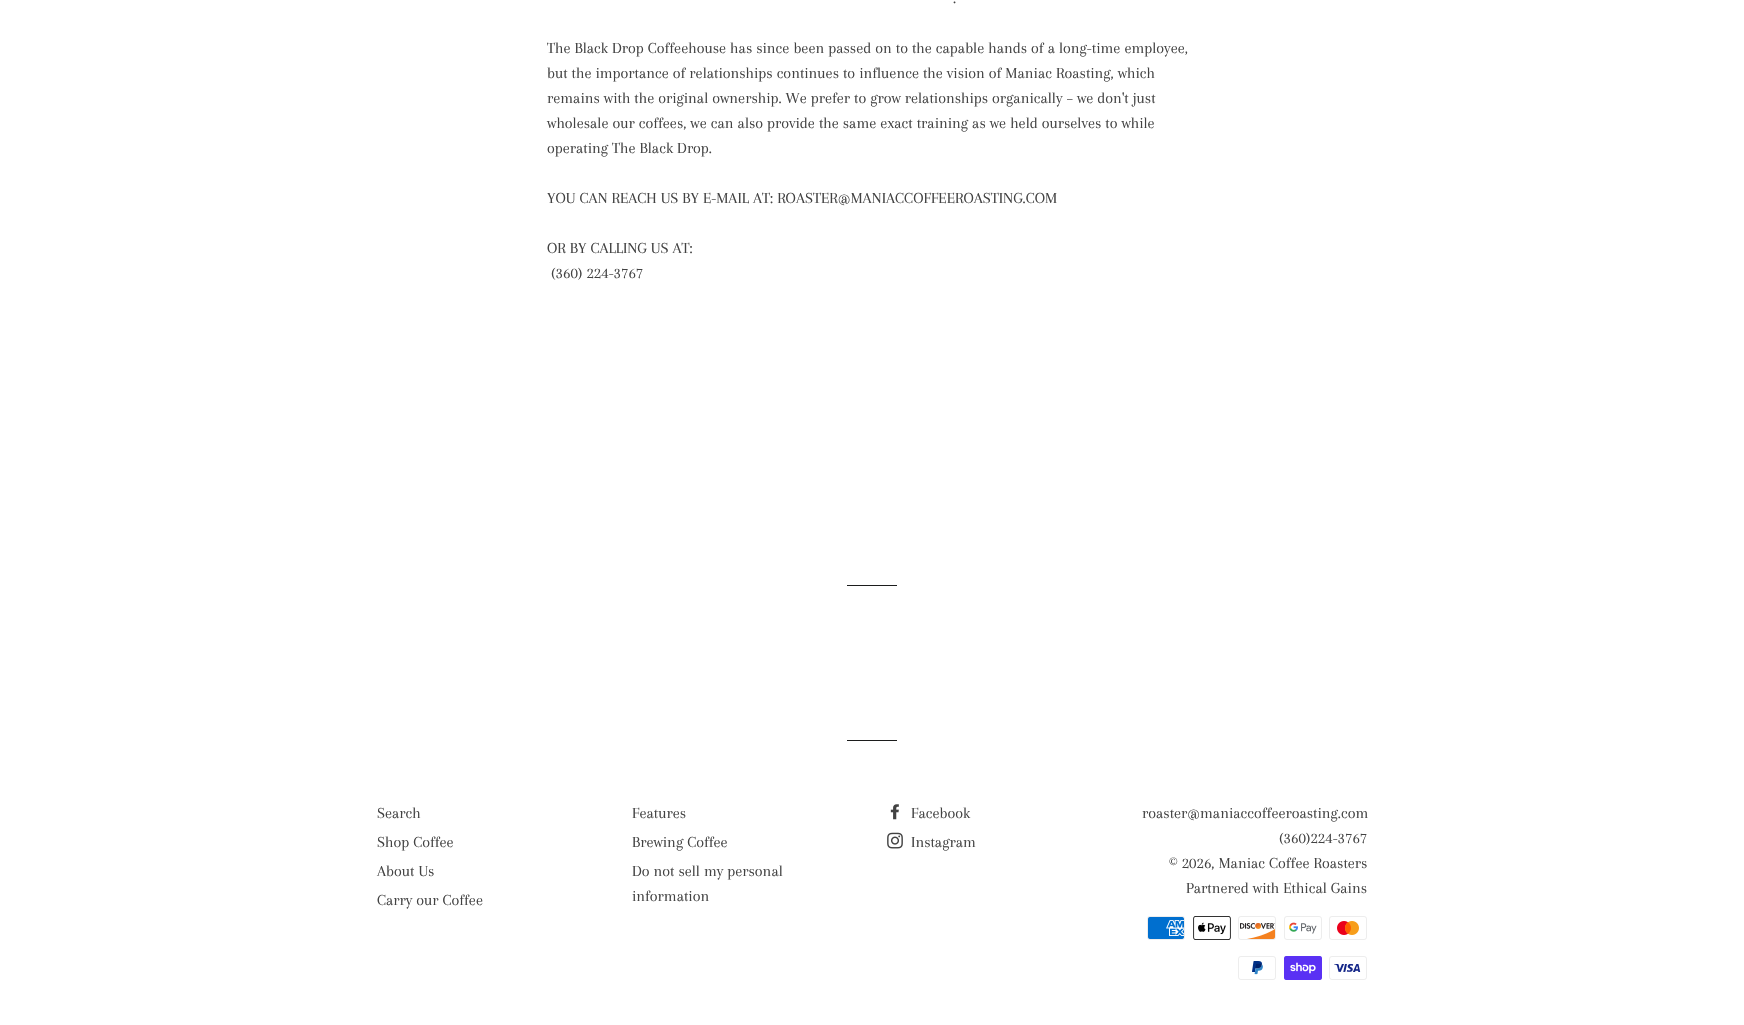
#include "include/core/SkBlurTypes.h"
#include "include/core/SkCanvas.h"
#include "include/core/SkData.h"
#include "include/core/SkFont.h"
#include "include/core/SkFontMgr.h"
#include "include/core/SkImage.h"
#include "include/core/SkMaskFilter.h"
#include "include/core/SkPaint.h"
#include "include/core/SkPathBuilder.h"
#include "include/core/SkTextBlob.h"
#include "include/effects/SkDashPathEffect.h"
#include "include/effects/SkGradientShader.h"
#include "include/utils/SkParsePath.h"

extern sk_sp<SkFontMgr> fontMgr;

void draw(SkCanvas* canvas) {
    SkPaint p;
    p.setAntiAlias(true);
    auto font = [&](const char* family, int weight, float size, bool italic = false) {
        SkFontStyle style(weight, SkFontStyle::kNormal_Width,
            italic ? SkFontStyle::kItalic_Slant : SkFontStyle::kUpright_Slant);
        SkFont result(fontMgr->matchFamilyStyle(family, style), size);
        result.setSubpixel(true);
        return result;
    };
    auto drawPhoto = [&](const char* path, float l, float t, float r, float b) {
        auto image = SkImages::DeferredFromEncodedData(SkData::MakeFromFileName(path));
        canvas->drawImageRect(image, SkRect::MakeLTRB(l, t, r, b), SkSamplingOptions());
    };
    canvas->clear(0xFFFFFFFF);
    auto font1 = font("Arapey", 400, 16);
    p.setColor(0xFF424242);
    {
        const struct { const char* s; float x, y; } items[] = {
            {".", 953, 3},
            {"The Black Drop Coffeehouse has since been passed on to the capable hands of a long-time employee,", 547, 53},
            {"but the importance of relationships continues to influence the vision of Maniac Roasting, which", 547, 78},
            {"remains with the original ownership. We prefer to grow relationships organically – we don't just", 547, 103},
            {"wholesale our coffees, we can also provide the same exact training as we held ourselves to while", 547, 128},
            {"operating The Black Drop.", 547, 153},
            {"YOU CAN REACH US BY E-MAIL AT: ROASTER@MANIACCOFFEEROASTING.COM", 547, 203},
            {"OR BY CALLING US AT:", 547, 253},
            {"(360) 224-3767", 551, 278},
        };
        for (auto [s, x, y] : items) {
            canvas->drawString(s, x, y, font1, p);
        }
    }
    p.setColor(0xFF1C1D1D);
    canvas->drawRect(SkRect::MakeLTRB(847, 585, 897, 586), p);
    canvas->drawRect(SkRect::MakeLTRB(847, 740, 897, 741), p);
    p.setColor(0xFF424242);
    {
        const struct { const char* s; float x, y; } items[] = {
            {"Search", 377, 818},
            {"Shop Coffee", 377, 847},
            {"About Us", 377, 876},
            {"Carry our Coffee", 377, 905},
            {"Features", 632, 818},
            {"Brewing Coffee", 632, 847},
            {"Do not sell my personal", 632, 876},
            {"information", 632, 901},
        };
        for (auto [s, x, y] : items) {
            canvas->drawString(s, x, y, font1, p);
        }
    }
    drawPhoto("media/1.png", 890, 804, 899, 820);
    canvas->drawString("Facebook", 911, 818, font1, p);
    drawPhoto("media/2.png", 887, 832, 903, 849);
    {
        const struct { const char* s; float x, y; } items[] = {
            {"Instagram", 911, 847},
            {"roaster@maniaccoffeeroasting.com", 1142, 818},
            {"(360)224-3767", 1279, 843},
            {"© 2026, Maniac Coffee Roasters", 1169, 868},
            {"Partnered with Ethical Gains", 1186, 893},
        };
        for (auto [s, x, y] : items) {
            canvas->drawString(s, x, y, font1, p);
        }
    }
    drawPhoto("media/3.png", 1147, 916, 1185, 940);
    drawPhoto("media/4.png", 1193, 916, 1231, 940);
    drawPhoto("media/5.png", 1238, 916, 1276, 940);
    drawPhoto("media/6.png", 1284, 916, 1322, 940);
    drawPhoto("media/7.png", 1329, 916, 1367, 940);
    drawPhoto("media/8.png", 1238, 956, 1276, 980);
    drawPhoto("media/9.png", 1284, 956, 1322, 980);
    drawPhoto("media/10.png", 1329, 956, 1367, 980);
}
